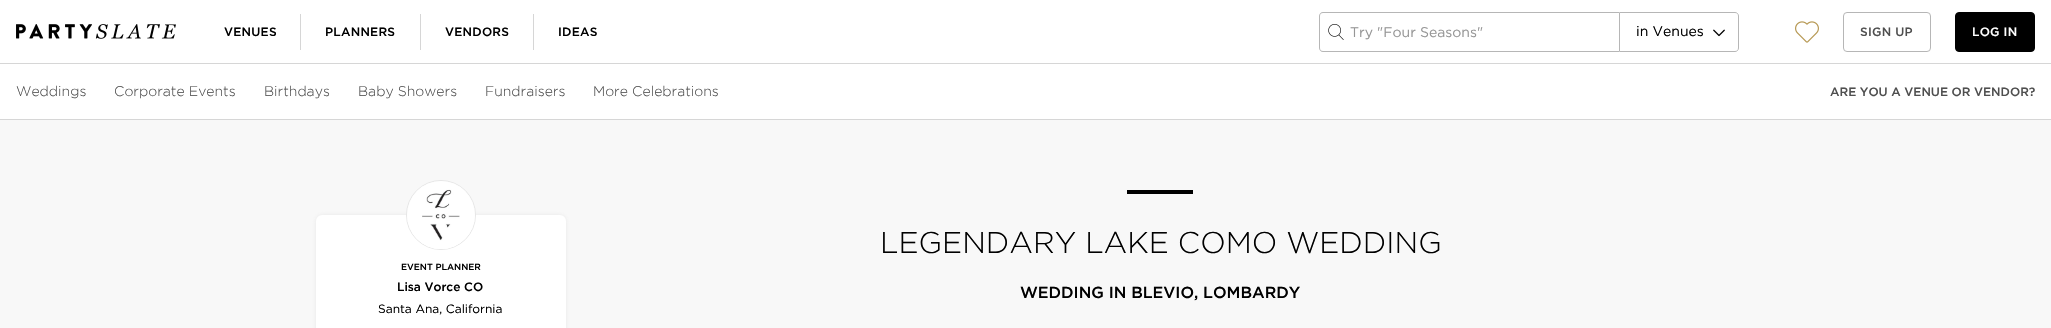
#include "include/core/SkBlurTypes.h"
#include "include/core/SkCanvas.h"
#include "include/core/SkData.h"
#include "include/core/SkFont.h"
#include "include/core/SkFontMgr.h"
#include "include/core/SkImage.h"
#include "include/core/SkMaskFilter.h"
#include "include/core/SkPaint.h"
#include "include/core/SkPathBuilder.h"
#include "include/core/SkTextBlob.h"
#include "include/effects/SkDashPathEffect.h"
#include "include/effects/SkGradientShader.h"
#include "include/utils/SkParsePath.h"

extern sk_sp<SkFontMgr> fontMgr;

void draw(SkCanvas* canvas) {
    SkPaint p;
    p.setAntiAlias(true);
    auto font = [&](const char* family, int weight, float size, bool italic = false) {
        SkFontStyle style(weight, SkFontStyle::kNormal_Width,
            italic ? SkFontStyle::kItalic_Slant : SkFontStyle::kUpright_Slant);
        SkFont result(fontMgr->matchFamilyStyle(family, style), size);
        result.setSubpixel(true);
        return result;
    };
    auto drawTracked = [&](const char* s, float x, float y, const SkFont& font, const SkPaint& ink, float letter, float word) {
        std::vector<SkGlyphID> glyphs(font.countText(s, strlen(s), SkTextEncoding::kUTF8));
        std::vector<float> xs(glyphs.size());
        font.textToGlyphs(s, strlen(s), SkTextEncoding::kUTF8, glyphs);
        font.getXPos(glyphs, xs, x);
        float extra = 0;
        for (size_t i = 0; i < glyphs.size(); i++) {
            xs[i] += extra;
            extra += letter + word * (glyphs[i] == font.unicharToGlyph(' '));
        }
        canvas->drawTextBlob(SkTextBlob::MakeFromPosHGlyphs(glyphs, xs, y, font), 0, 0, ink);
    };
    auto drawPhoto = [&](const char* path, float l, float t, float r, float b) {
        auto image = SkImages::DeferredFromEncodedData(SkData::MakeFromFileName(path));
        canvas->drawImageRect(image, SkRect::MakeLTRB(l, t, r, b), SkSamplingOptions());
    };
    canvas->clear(0xFFF8F8F8);
    p.setColor(0xFFFFFFFF);
    canvas->drawRect(SkRect::MakeLTRB(0, 0, 2051, 63), p);
    p.setColor(0xFFD6D6D6);
    canvas->drawRect(SkRect::MakeLTRB(0, 63, 2051, 64), p);
    drawPhoto("media/1.png", 16, 24, 176, 39);
    auto font1 = font("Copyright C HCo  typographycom", 300, 12);
    p.setColor(0xFF000000);
    drawTracked("VENUES", 224, 36, font1, p, 0.25f, 0);
    p.setColor(0xFFD6D6D6);
    canvas->drawRect(SkRect::MakeLTRB(300, 14, 301, 50), p);
    p.setColor(0xFF000000);
    drawTracked("PLANNERS", 325, 36, font1, p, 0.25f, 0);
    p.setColor(0xFFD6D6D6);
    canvas->drawRect(SkRect::MakeLTRB(420, 14, 421, 50), p);
    p.setColor(0xFF000000);
    drawTracked("VENDORS", 445, 36, font1, p, 0.25f, 0);
    p.setColor(0xFFD6D6D6);
    canvas->drawRect(SkRect::MakeLTRB(533, 14, 534, 50), p);
    p.setColor(0xFF000000);
    drawTracked("IDEAS", 558, 36, font1, p, 0.25f, 0);
    drawPhoto("media/2.png", 1328, 24, 1344, 40);
    p.setColor(0xFFB6B6B6);
    canvas->drawPath(SkPathBuilder(SkPathFillType::kEvenOdd).moveTo(1323, 12).lineTo(1619, 12).lineTo(1619, 52).lineTo(1323, 52).cubicTo(1321, 52, 1319, 50, 1319, 48).lineTo(1319, 16).cubicTo(1319, 14, 1321, 12, 1323, 12).close().moveTo(1323, 13).lineTo(1619, 13).lineTo(1619, 51).lineTo(1323, 51).cubicTo(1321, 51, 1320, 50, 1320, 48).lineTo(1320, 16).cubicTo(1320, 14, 1321, 13, 1323, 13).close().detach(), p);
    auto font2 = font("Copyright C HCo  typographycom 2", 300, 14);
    p.setColor(0xFF969696);
    canvas->drawString("Try \"Four Seasons\"", 1350, 37, font2, p);
    p.setStyle(SkPaint::kStroke_Style);
    p.setStrokeWidth(1);
    p.setColor(0xFFB6B6B6);
    canvas->drawPath(SkPathBuilder().moveTo(1619.5f, 12.5f).lineTo(1735, 12.5f).cubicTo(1737, 12.5f, 1738.5f, 14, 1738.5f, 16).lineTo(1738.5f, 48).cubicTo(1738.5f, 50, 1737, 51.5f, 1735, 51.5f).lineTo(1619.5f, 51.5f).close().detach(), p);
    p.setStyle(SkPaint::kFill_Style);
    p.setColor(0xFF000000);
    canvas->drawString("in Venues", 1636, 36, font2, p);
    drawPhoto("media/3.png", 1713, 29, 1725, 37);
    drawPhoto("media/4.png", 1795, 21, 1819, 43);
    p.setStyle(SkPaint::kStroke_Style);
    p.setColor(0xFFB6B6B6);
    canvas->drawRoundRect(SkRect::MakeLTRB(1843.5f, 12.5f, 1930.5f, 51.5f), 3.5f, 3.5f, p);
    p.setStyle(SkPaint::kFill_Style);
    p.setColor(0xFF4F4F4F);
    drawTracked("SIGN UP", 1860, 36, font1, p, 0.25f, 0);
    p.setColor(0xFF000000);
    canvas->drawRoundRect(SkRect::MakeLTRB(1955.5f, 12.5f, 2034.5f, 51.5f), 3.5f, 3.5f, p);
    p.setStyle(SkPaint::kStroke_Style);
    canvas->drawRoundRect(SkRect::MakeLTRB(1955.5f, 12.5f, 2034.5f, 51.5f), 3.5f, 3.5f, p);
    p.setStyle(SkPaint::kFill_Style);
    p.setColor(0xFFFFFFFF);
    drawTracked("LOG IN", 1972, 36, font1, p, 0.25f, 0);
    canvas->drawRect(SkRect::MakeLTRB(0, 64, 2051, 119), p);
    p.setColor(0xFFD6D6D6);
    canvas->drawRect(SkRect::MakeLTRB(0, 119, 2051, 120), p);
    auto font3 = font("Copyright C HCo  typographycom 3", 300, 14);
    p.setColor(0xFF4F4F4F);
    {
        const struct { const char* s; float x, y; } items[] = {
            {"Weddings", 16, 96},
            {"Corporate Events", 114, 96},
            {"Birthdays", 264, 96},
            {"Baby Showers", 358, 96},
            {"Fundraisers", 485, 96},
            {"More Celebrations", 593, 96},
        };
        for (auto [s, x, y] : items) {
            canvas->drawString(s, x, y, font3, p);
        }
    }
    canvas->drawString("ARE YOU A VENUE OR VENDOR?", 1830, 96, font1, p);
    p.setColor(0x80D8D8D8);
    p.setMaskFilter(SkMaskFilter::MakeBlur(kNormal_SkBlurStyle, 2));
    canvas->drawRoundRect(SkRect::MakeLTRB(316, 215, 566, 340), 6, 6, p);
    p.setMaskFilter(nullptr);
    p.setColor(0xFFFFFFFF);
    canvas->drawRoundRect(SkRect::MakeLTRB(316, 215, 566, 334), 6, 6, p);
    p.setStyle(SkPaint::kStroke_Style);
    p.setColor(0xFFE6E6E6);
    canvas->drawCircle(441, 215, 34.5f, p);
    p.setStyle(SkPaint::kFill_Style);
    p.setColor(0xFFFFFFFF);
    canvas->drawCircle(441, 215, 34, p);
    drawPhoto("media/5.png", 422, 189, 460, 249);
    auto font4 = font("Copyright C HCo  typographycom", 300, 9);
    p.setColor(0xFF000000);
    canvas->drawString("EVENT PLANNER", 401, 270, font4, p);
    canvas->drawString("Lisa Vorce CO", 397, 291, font1, p);
    auto font5 = font("Copyright C HCo  typographycom 2", 300, 12);
    canvas->drawString("Santa Ana, California", 378, 313, font5, p);
    canvas->drawRect(SkRect::MakeLTRB(1127, 190, 1193, 194), p);
    auto font6 = font("Copyright C HCo  typographycom 3", 300, 30);
    canvas->drawString("LEGENDARY LAKE COMO WEDDING", 880, 253, font6, p);
    auto font7 = font("Copyright C HCo  typographycom", 300, 16);
    canvas->drawString("WEDDING IN BLEVIO, LOMBARDY", 1020, 298, font7, p);
}
